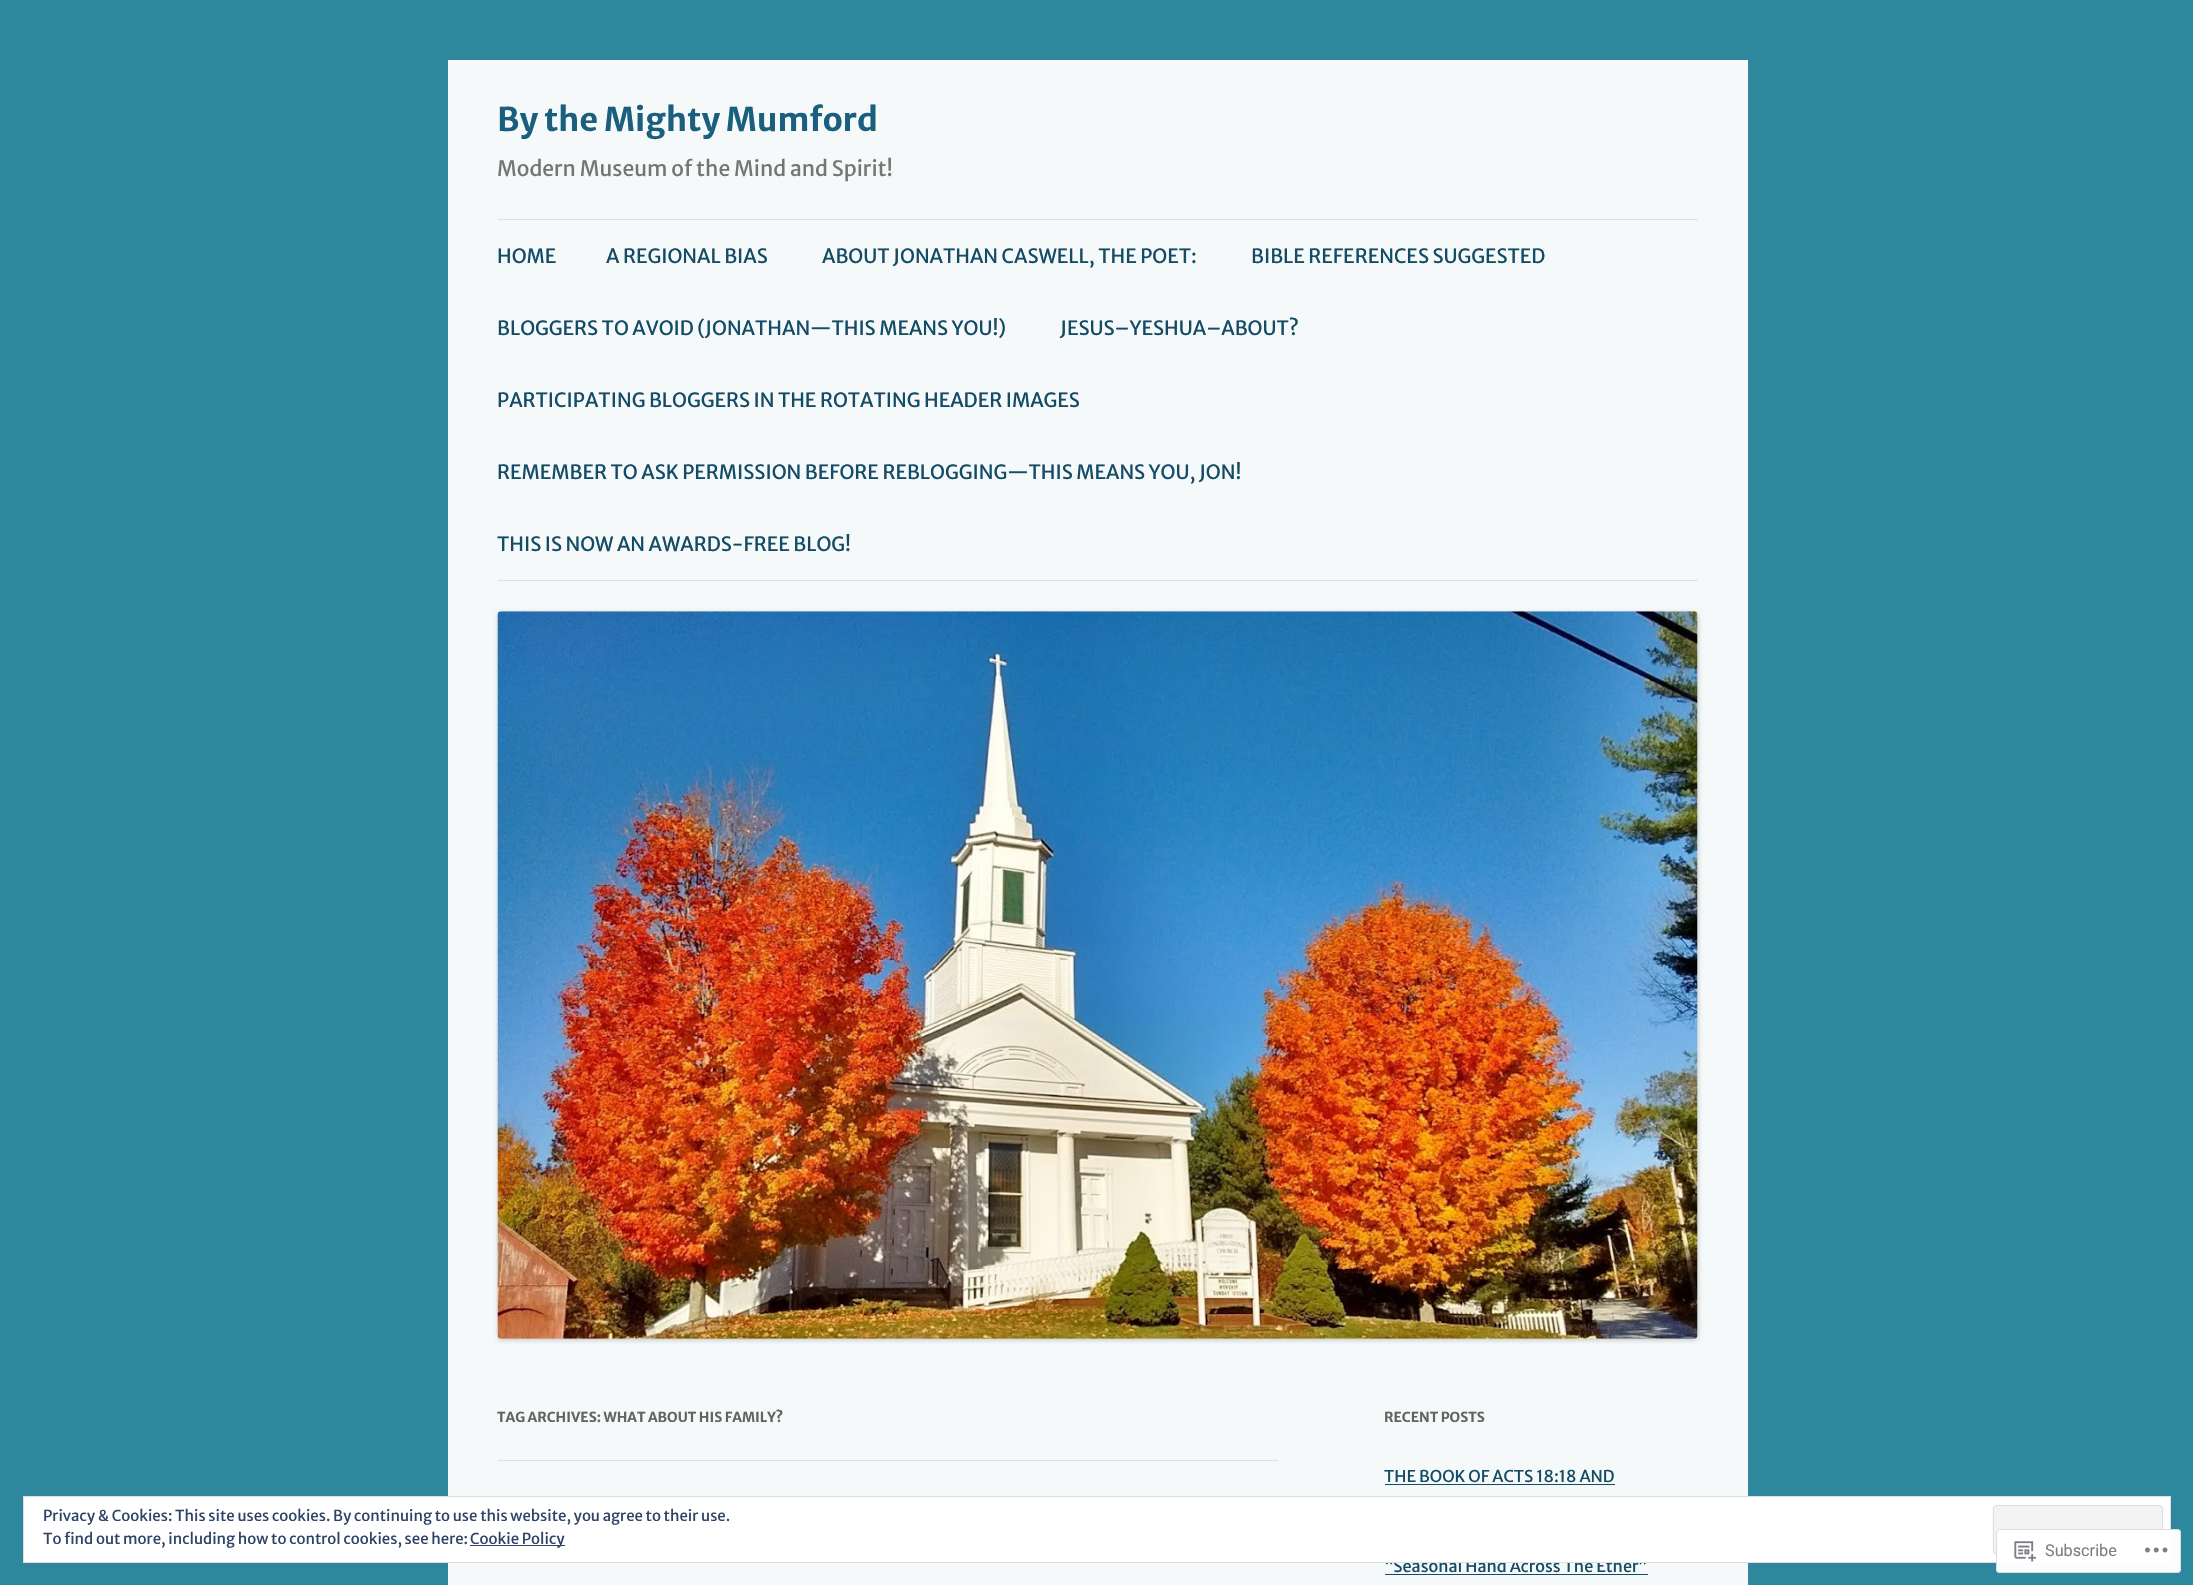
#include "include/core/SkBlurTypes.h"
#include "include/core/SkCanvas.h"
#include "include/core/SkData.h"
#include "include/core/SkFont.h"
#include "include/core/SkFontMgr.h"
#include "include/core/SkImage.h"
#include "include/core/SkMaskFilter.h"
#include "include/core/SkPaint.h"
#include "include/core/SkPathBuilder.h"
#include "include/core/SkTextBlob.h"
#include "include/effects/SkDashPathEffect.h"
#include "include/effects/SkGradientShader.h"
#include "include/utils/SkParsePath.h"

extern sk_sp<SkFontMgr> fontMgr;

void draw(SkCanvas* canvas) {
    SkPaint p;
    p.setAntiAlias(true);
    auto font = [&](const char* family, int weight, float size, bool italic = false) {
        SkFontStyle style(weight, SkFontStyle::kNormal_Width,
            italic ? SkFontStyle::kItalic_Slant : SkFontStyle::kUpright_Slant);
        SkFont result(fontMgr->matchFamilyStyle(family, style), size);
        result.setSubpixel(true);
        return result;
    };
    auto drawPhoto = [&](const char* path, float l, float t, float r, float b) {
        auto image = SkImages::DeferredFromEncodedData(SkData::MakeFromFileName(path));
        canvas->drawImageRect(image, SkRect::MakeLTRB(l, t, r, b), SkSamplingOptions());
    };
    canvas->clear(0xFF2E889D);
    p.setColor(0xF2FFFFFF);
    canvas->drawRect(SkRect::MakeLTRB(448, 60, 1748, 1585), p);
    auto font1 = font("Merriweather Sans", 400, 16.25f);
    p.setColor(0xFF144C66);
    canvas->drawString("“Seasonal Hand Across The Ether”", 1384, 1572, font1, p);
    p.setColor(0xFFFFFFFF);
    canvas->drawRect(SkRect::MakeLTRB(23.5f, 1496.5f, 2170.5f, 1562.5f), p);
    p.setStyle(SkPaint::kStroke_Style);
    p.setStrokeWidth(1);
    p.setColor(0xFFDEDEDE);
    canvas->drawRect(SkRect::MakeLTRB(23.5f, 1496.5f, 2170.5f, 1562.5f), p);
    auto font2 = font("Merriweather Sans", 400, 15);
    p.setStyle(SkPaint::kFill_Style);
    p.setColor(0xFF2E4467);
    canvas->drawString("Privacy & Cookies: This site uses cookies. By continuing to use this website, you agree to their use.", 43, 1521, font2, p);
    p.setColor(0x1A404040);
    p.setMaskFilter(SkMaskFilter::MakeBlur(kNormal_SkBlurStyle, 1));
    canvas->drawRoundRect(SkRect::MakeLTRB(1993, 1506, 2163, 1555), 4, 4, p);
    p.setMaskFilter(nullptr);
    p.setColor(0xFFF3F3F3);
    canvas->drawRoundRect(SkRect::MakeLTRB(1993.5f, 1505.5f, 2162.5f, 1553.5f), 3.5f, 3.5f, p);
    p.setStyle(SkPaint::kStroke_Style);
    p.setColor(0xFFDEDEDE);
    canvas->drawRoundRect(SkRect::MakeLTRB(1993.5f, 1505.5f, 2162.5f, 1553.5f), 3.5f, 3.5f, p);
    p.setStyle(SkPaint::kFill_Style);
    p.setColor(0xFF2E4467);
    canvas->drawString("To find out more, including how to control cookies, see here:", 43, 1544, font2, p);
    canvas->drawRect(SkRect::MakeLTRB(470, 1545, 565, 1546), p);
    canvas->drawString("Cookie Policy", 470, 1544, font2, p);
    auto font3 = font("Merriweather Sans", 700, 32.5f);
    p.setColor(0xFF1A5F7E);
    canvas->drawString("By the Mighty Mumford", 497, 131, font3, p);
    auto font4 = font("Merriweather Sans", 400, 21.1f);
    p.setColor(0xFF757575);
    canvas->drawString("Modern Museum of the Mind and Spirit!", 497, 176, font4, p);
    p.setColor(0xFFDCE0E1);
    canvas->drawRect(SkRect::MakeLTRB(498, 219, 1698, 220), p);
    canvas->drawRect(SkRect::MakeLTRB(498, 580, 1698, 581), p);
    auto font5 = font("Merriweather Sans", 400, 19.5f);
    p.setColor(0xFF144C66);
    {
        const struct { const char* s; float x, y; } items[] = {
            {"HOME", 497, 263},
            {"A REGIONAL BIAS", 606, 263},
            {"ABOUT JONATHAN CASWELL, THE POET:", 822, 263},
            {"BIBLE REFERENCES SUGGESTED", 1251, 263},
            {"BLOGGERS TO AVOID (JONATHAN—THIS MEANS YOU!)", 497, 335},
            {"JESUS–YESHUA–ABOUT?", 1060, 335},
            {"PARTICIPATING BLOGGERS IN THE ROTATING HEADER IMAGES", 497, 407},
            {"REMEMBER TO ASK PERMISSION BEFORE REBLOGGING—THIS MEANS YOU, JON!", 497, 479},
            {"THIS IS NOW AN AWARDS-FREE BLOG!", 497, 551},
        };
        for (auto [s, x, y] : items) {
            canvas->drawString(s, x, y, font5, p);
        }
    }
    p.setColor(0x33000000);
    p.setMaskFilter(SkMaskFilter::MakeBlur(kNormal_SkBlurStyle, 2.5f));
    canvas->drawRoundRect(SkRect::MakeLTRB(498, 613, 1698, 1340), 4, 4, p);
    p.setMaskFilter(nullptr);
    drawPhoto("media/1.png", 497, 611, 1698, 1339);
    p.setColor(0xFFDCE0E1);
    canvas->drawRect(SkRect::MakeLTRB(498, 1460, 1278, 1461), p);
    auto font6 = font("Merriweather Sans", 700, 13.75f);
    p.setColor(0xFF636363);
    canvas->drawString("TAG ARCHIVES: WHAT ABOUT HIS FAMILY?", 497, 1422, font6, p);
    canvas->drawString("RECENT POSTS", 1384, 1422, font6, p);
    p.setColor(0xFF144C66);
    canvas->drawString("THE BOOK OF ACTS 18:18 AND", 1384, 1482, font1, p);
    canvas->drawRect(SkRect::MakeLTRB(1385, 1484, 1615, 1485), p);
    canvas->drawRect(SkRect::MakeLTRB(1385, 1574, 1648, 1575), p);
    p.setColor(0xFAFFFFFF);
    canvas->drawRoundRect(SkRect::MakeLTRB(1996, 1529, 2181, 1573), 4, 4, p);
    p.setStyle(SkPaint::kStroke_Style);
    p.setColor(0xFADCDCDE);
    canvas->drawRoundRect(SkRect::MakeLTRB(1996.5f, 1529.5f, 2180.5f, 1572.5f), 3.5f, 3.5f, p);
    drawPhoto("media/2.png", 2014, 1541, 2036, 1562);
    auto font7 = font("Roboto", 400, 16.25f);
    p.setStyle(SkPaint::kFill_Style);
    p.setColor(0xFF7B7F84);
    canvas->drawString("Subscribe", 2045, 1556, font7, p);
    drawPhoto("media/3.png", 2145, 1547, 2168, 1553);
}
